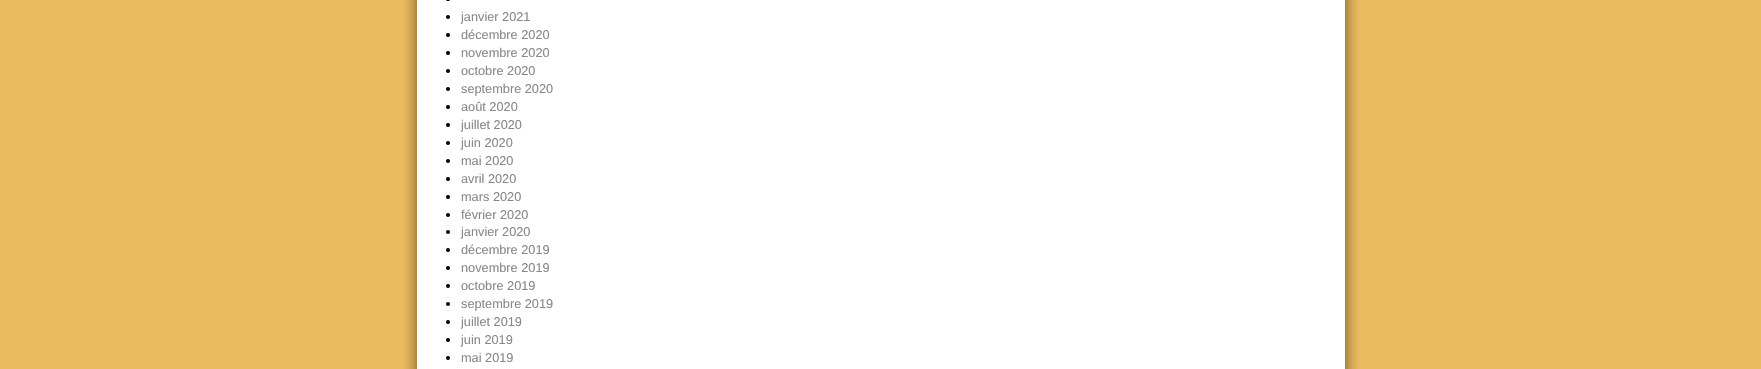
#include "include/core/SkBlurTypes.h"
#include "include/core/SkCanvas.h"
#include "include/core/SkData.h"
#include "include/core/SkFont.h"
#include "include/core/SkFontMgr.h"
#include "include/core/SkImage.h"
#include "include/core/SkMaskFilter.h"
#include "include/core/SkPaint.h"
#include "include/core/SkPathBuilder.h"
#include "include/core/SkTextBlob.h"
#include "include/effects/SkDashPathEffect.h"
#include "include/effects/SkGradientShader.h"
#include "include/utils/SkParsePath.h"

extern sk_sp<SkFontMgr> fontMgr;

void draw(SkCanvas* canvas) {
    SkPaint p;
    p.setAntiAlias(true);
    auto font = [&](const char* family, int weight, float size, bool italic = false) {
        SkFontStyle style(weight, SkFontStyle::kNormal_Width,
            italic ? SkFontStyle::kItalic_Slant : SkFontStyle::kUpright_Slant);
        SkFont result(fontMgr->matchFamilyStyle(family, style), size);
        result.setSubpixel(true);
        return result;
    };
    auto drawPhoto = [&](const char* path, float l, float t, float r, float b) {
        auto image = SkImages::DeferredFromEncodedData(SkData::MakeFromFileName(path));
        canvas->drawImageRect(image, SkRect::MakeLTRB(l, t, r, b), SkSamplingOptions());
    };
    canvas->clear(0xFFEBBC5F);
    drawPhoto("media/1.png", 403, 0, 1359, 369);
    p.setColor(0xFF000000);
    canvas->drawRoundRect(SkRect::MakeLTRB(446, -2, 450, 1), 2, 2, p);
    canvas->drawCircle(448, 17, 2, p);
    auto font1 = font("Liberation Sans", 400, 12.75f);
    p.setColor(0xFF888888);
    canvas->drawString("janvier 2021", 461, 21, font1, p);
    p.setColor(0xFF000000);
    canvas->drawCircle(448, 35, 2, p);
    p.setColor(0xFF888888);
    canvas->drawString("décembre 2020", 461, 39, font1, p);
    p.setColor(0xFF000000);
    canvas->drawCircle(448, 53, 2, p);
    p.setColor(0xFF888888);
    canvas->drawString("novembre 2020", 461, 57, font1, p);
    p.setColor(0xFF000000);
    canvas->drawCircle(448, 71, 2, p);
    p.setColor(0xFF888888);
    canvas->drawString("octobre 2020", 461, 75, font1, p);
    p.setColor(0xFF000000);
    canvas->drawCircle(448, 89, 2, p);
    p.setColor(0xFF888888);
    canvas->drawString("septembre 2020", 461, 93, font1, p);
    p.setColor(0xFF000000);
    canvas->drawCircle(448, 107, 2, p);
    p.setColor(0xFF888888);
    canvas->drawString("août 2020", 461, 111, font1, p);
    p.setColor(0xFF000000);
    canvas->drawCircle(448, 125, 2, p);
    p.setColor(0xFF888888);
    canvas->drawString("juillet 2020", 461, 129, font1, p);
    p.setColor(0xFF000000);
    canvas->drawCircle(448, 143, 2, p);
    p.setColor(0xFF888888);
    canvas->drawString("juin 2020", 461, 147, font1, p);
    p.setColor(0xFF000000);
    canvas->drawCircle(448, 161, 2, p);
    p.setColor(0xFF888888);
    canvas->drawString("mai 2020", 461, 165, font1, p);
    p.setColor(0xFF000000);
    canvas->drawCircle(448, 179, 2, p);
    p.setColor(0xFF888888);
    canvas->drawString("avril 2020", 461, 183, font1, p);
    p.setColor(0xFF000000);
    canvas->drawCircle(448, 197, 2, p);
    p.setColor(0xFF888888);
    canvas->drawString("mars 2020", 461, 201, font1, p);
    p.setColor(0xFF000000);
    canvas->drawCircle(448, 215, 2, p);
    p.setColor(0xFF888888);
    canvas->drawString("février 2020", 461, 219, font1, p);
    p.setColor(0xFF000000);
    canvas->drawCircle(448, 232, 2, p);
    p.setColor(0xFF888888);
    canvas->drawString("janvier 2020", 461, 236, font1, p);
    p.setColor(0xFF000000);
    canvas->drawCircle(448, 250, 2, p);
    p.setColor(0xFF888888);
    canvas->drawString("décembre 2019", 461, 254, font1, p);
    p.setColor(0xFF000000);
    canvas->drawCircle(448, 268, 2, p);
    p.setColor(0xFF888888);
    canvas->drawString("novembre 2019", 461, 272, font1, p);
    p.setColor(0xFF000000);
    canvas->drawCircle(448, 286, 2, p);
    p.setColor(0xFF888888);
    canvas->drawString("octobre 2019", 461, 290, font1, p);
    p.setColor(0xFF000000);
    canvas->drawCircle(448, 304, 2, p);
    p.setColor(0xFF888888);
    canvas->drawString("septembre 2019", 461, 308, font1, p);
    p.setColor(0xFF000000);
    canvas->drawCircle(448, 322, 2, p);
    p.setColor(0xFF888888);
    canvas->drawString("juillet 2019", 461, 326, font1, p);
    p.setColor(0xFF000000);
    canvas->drawCircle(448, 340, 2, p);
    p.setColor(0xFF888888);
    canvas->drawString("juin 2019", 461, 344, font1, p);
    p.setColor(0xFF000000);
    canvas->drawCircle(448, 358, 2, p);
    p.setColor(0xFF888888);
    canvas->drawString("mai 2019", 461, 362, font1, p);
}
